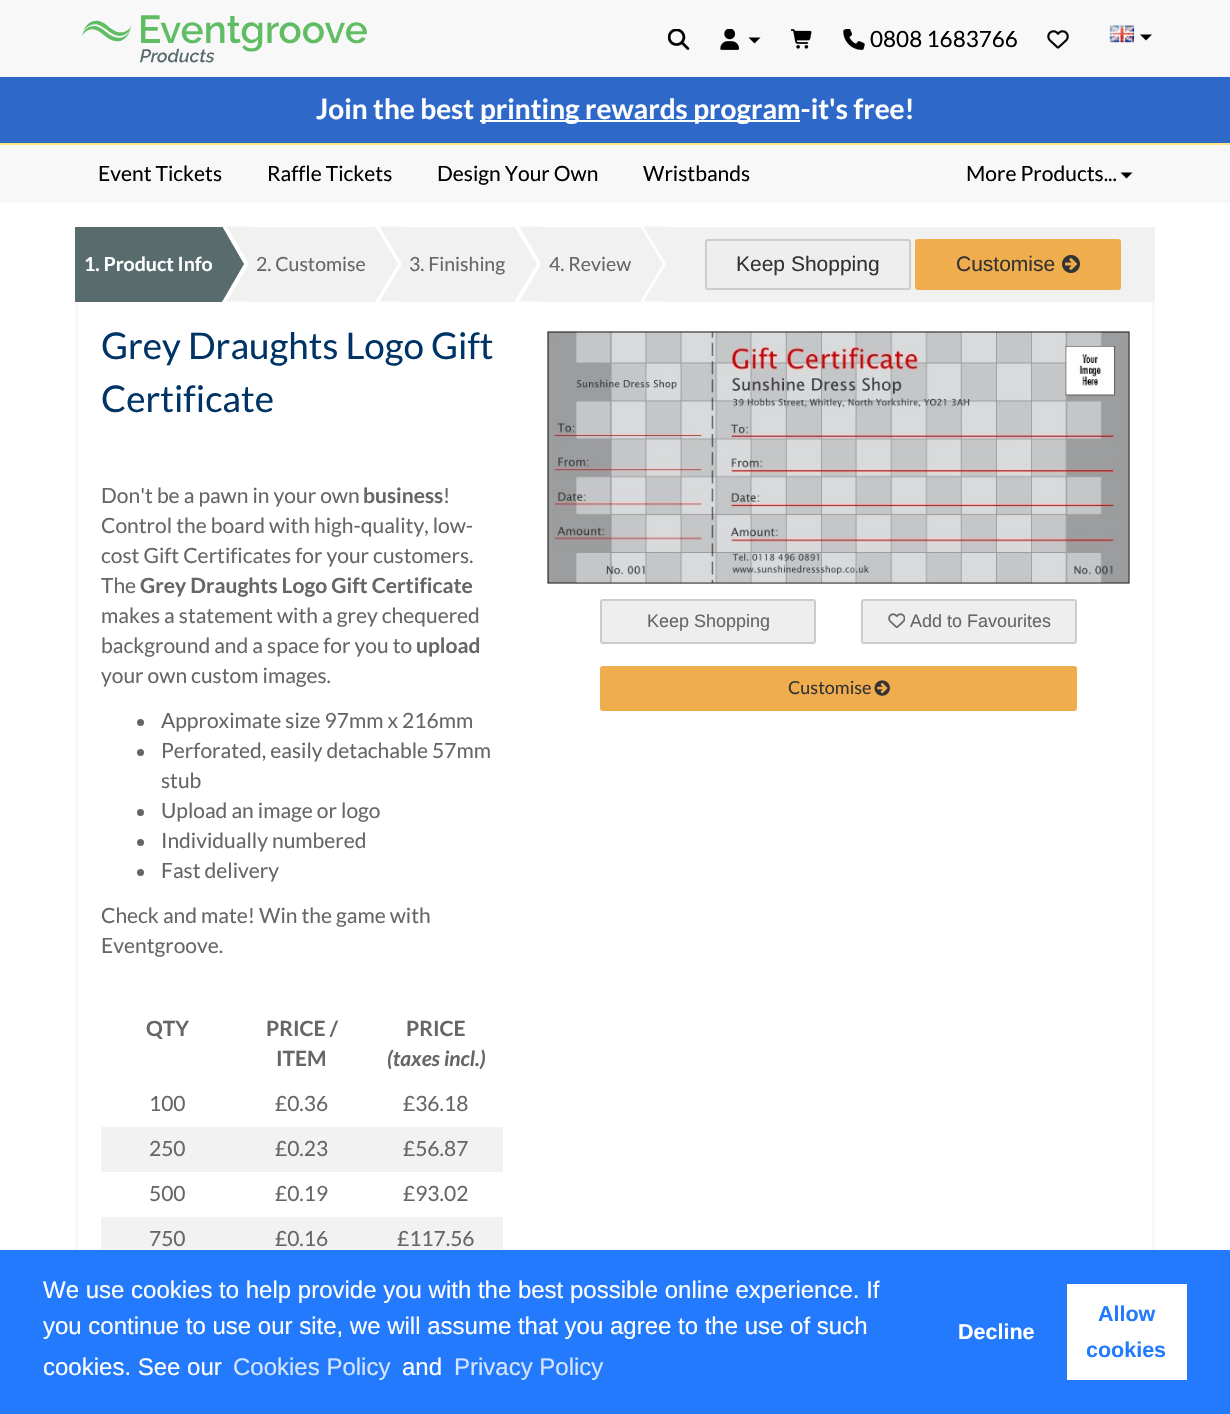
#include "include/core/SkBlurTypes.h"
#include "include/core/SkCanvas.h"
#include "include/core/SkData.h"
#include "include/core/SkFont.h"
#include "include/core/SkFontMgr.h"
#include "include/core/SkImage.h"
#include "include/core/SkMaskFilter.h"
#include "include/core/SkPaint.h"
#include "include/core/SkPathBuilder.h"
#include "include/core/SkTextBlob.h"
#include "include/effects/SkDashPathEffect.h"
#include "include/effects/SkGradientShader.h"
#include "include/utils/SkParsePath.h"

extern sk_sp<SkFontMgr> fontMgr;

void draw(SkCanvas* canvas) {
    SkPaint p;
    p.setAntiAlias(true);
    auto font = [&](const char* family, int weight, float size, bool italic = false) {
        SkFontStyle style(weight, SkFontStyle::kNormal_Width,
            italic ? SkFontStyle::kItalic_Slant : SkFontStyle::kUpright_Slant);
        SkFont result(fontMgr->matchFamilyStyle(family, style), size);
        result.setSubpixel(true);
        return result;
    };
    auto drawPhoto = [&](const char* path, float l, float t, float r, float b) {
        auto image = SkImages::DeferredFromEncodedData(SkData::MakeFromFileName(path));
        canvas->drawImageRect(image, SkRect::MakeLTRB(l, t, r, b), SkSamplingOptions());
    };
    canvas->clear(0xFFFFFFFF);
    p.setColor(0xFFF8F8F8);
    canvas->drawRect(SkRect::MakeLTRB(0, 145, 1230, 203), p);
    canvas->drawRect(SkRect::MakeLTRB(0, 0, 1230, 77), p);
    drawPhoto("media/1.png", 81, 15, 367, 63);
    drawPhoto("media/2.png", 668, 29, 690, 50);
    drawPhoto("media/3.png", 720, 29, 740, 50);
    p.setColor(0xFF000000);
    canvas->drawPath(SkPathBuilder().moveTo(748.5f, 37.5f).lineTo(760.5f, 37.5f).lineTo(754.5f, 43.5f).close().detach(), p);
    drawPhoto("media/4.png", 791, 29, 812, 49);
    drawPhoto("media/5.png", 843, 29, 865, 50);
    auto font1 = font("Lato", 400, 22.5f);
    canvas->drawString("0808 1683766", 870, 47, font1, p);
    drawPhoto("media/6.png", 1047, 30, 1069, 49);
    drawPhoto("media/7.png", 1109, 25, 1134, 43);
    canvas->drawPath(SkPathBuilder().moveTo(1140, 34.5f).lineTo(1152, 34.5f).lineTo(1146, 40.5f).close().detach(), p);
    p.setColor(0xFF2E68C9);
    canvas->drawRect(SkRect::MakeLTRB(0, 77, 1230, 143), p);
    p.setColor(0xFFFFE581);
    canvas->drawRect(SkRect::MakeLTRB(0, 143, 1230, 145), p);
    auto font2 = font("Lato", 700, 28);
    p.setColor(0xFFFFFFFF);
    canvas->drawString("Join the best", 316, 119, font2, p);
    canvas->drawRect(SkRect::MakeLTRB(480, 120, 800, 122), p);
    canvas->drawString("printing rewards program-it's free!", 480, 119, font2, p);
    auto font3 = font("Lato", 400, 21);
    p.setColor(0xFF000000);
    {
        const struct { const char* s; float x, y; } items[] = {
            {"Event Tickets", 98, 181},
            {"Raffle Tickets", 267, 181},
            {"Design Your Own", 437, 181},
            {"Wristbands", 643, 181},
            {"More Products...", 966, 181},
        };
        for (auto [s, x, y] : items) {
            canvas->drawString(s, x, y, font3, p);
        }
    }
    canvas->drawPath(SkPathBuilder().moveTo(1120.5f, 172.5f).lineTo(1132.5f, 172.5f).lineTo(1126.5f, 178.5f).close().detach(), p);
    p.setColor(0xFFF1F1F2);
    canvas->drawRect(SkRect::MakeLTRB(666, 227, 1155, 302), p);
    p.setColor(0xFF586B6D);
    canvas->drawRect(SkRect::MakeLTRB(75, 227, 222, 302), p);
    auto font4 = font("Lato", 700, 19.5f);
    p.setColor(0xFFFFFFFF);
    canvas->drawString("1. Product Info", 84, 271, font4, p);
    p.setColor(0xFF586B6D);
    canvas->drawPath(SkPathBuilder().moveTo(222, 302).lineTo(222, 226).lineTo(244, 264).close().detach(), p);
    p.setColor(0xFFF1F1F2);
    canvas->drawRect(SkRect::MakeLTRB(248, 227, 375, 302), p);
    canvas->drawPath(SkPathBuilder().moveTo(226.5f, 226.5f).lineTo(249, 226.5f).lineTo(249, 264).close().detach(), p);
    canvas->drawPath(SkPathBuilder().moveTo(249, 301.5f).lineTo(226.5f, 301.5f).lineTo(249, 264).close().detach(), p);
    auto font5 = font("Lato", 400, 19.5f);
    p.setColor(0xFF666666);
    canvas->drawString("2. Customise", 256, 271, font5, p);
    p.setColor(0xFFF1F1F2);
    canvas->drawPath(SkPathBuilder().moveTo(375, 302).lineTo(375, 226).lineTo(398, 264).close().detach(), p);
    canvas->drawRect(SkRect::MakeLTRB(401, 227, 515, 302), p);
    canvas->drawPath(SkPathBuilder().moveTo(379.5f, 226.5f).lineTo(402, 226.5f).lineTo(402, 264).close().detach(), p);
    canvas->drawPath(SkPathBuilder().moveTo(402, 301.5f).lineTo(379.5f, 301.5f).lineTo(402, 264).close().detach(), p);
    p.setColor(0xFF666666);
    canvas->drawString("3. Finishing", 409, 271, font5, p);
    p.setColor(0xFFF1F1F2);
    canvas->drawPath(SkPathBuilder().moveTo(514, 302).lineTo(514, 226).lineTo(537, 264).close().detach(), p);
    canvas->drawRect(SkRect::MakeLTRB(540, 227, 641, 302), p);
    canvas->drawPath(SkPathBuilder().moveTo(519, 226.5f).lineTo(541.5f, 226.5f).lineTo(541.5f, 264).close().detach(), p);
    canvas->drawPath(SkPathBuilder().moveTo(541.5f, 301.5f).lineTo(519, 301.5f).lineTo(541.5f, 264).close().detach(), p);
    p.setColor(0xFF666666);
    canvas->drawString("4. Review", 549, 271, font5, p);
    p.setColor(0xFFF1F1F2);
    canvas->drawPath(SkPathBuilder().moveTo(640, 302).lineTo(640, 226).lineTo(663, 264).close().detach(), p);
    canvas->drawPath(SkPathBuilder().moveTo(643.5f, 226.5f).lineTo(666, 226.5f).lineTo(666, 264).close().detach(), p);
    canvas->drawPath(SkPathBuilder().moveTo(666, 301.5f).lineTo(643.5f, 301.5f).lineTo(666, 264).close().detach(), p);
    p.setColor(0xFFEEEEEE);
    canvas->drawRoundRect(SkRect::MakeLTRB(706, 240, 910, 289), 2, 2, p);
    p.setStyle(SkPaint::kStroke_Style);
    p.setStrokeWidth(2);
    p.setColor(0xFFCCCCCC);
    canvas->drawRoundRect(SkRect::MakeLTRB(706, 240, 910, 289), 2, 2, p);
    auto font6 = font("Liberation Sans", 400, 21);
    p.setStyle(SkPaint::kFill_Style);
    p.setColor(0xFF333333);
    canvas->drawString("Keep Shopping", 736, 271, font6, p);
    p.setColor(0xFFF0AD4E);
    canvas->drawRoundRect(SkRect::MakeLTRB(916, 240, 1120, 289), 2, 2, p);
    p.setStyle(SkPaint::kStroke_Style);
    canvas->drawRoundRect(SkRect::MakeLTRB(916, 240, 1120, 289), 2, 2, p);
    p.setStyle(SkPaint::kFill_Style);
    p.setColor(0xFF333333);
    canvas->drawString("Customise", 956, 271, font6, p);
    drawPhoto("media/8.png", 1062, 255, 1080, 273);
    p.setColor(0xFFF8F8F8);
    canvas->drawRect(SkRect::MakeLTRB(75, 302, 1155, 1250), p);
    p.setColor(0xFFFFFFFF);
    canvas->drawRect(SkRect::MakeLTRB(78, 302, 1152, 1250), p);
    auto font7 = font("Lato", 400, 36.75f);
    p.setColor(0xFF003366);
    canvas->drawString("Grey Draughts Logo Gift", 101, 359, font7, p);
    canvas->drawString("Certificate", 101, 412, font7, p);
    p.setColor(0xFF666666);
    canvas->drawString("Don't be a pawn in your own", 101, 503, font3, p);
    auto font8 = font("Lato", 700, 21);
    canvas->drawString("business", 363, 503, font8, p);
    {
        const struct { const char* s; float x, y; } items[] = {
            {"!", 443, 503},
            {"Control the board with high-quality, low-", 101, 533},
            {"cost Gift Certificates for your customers.", 101, 563},
            {"The", 101, 593},
        };
        for (auto [s, x, y] : items) {
            canvas->drawString(s, x, y, font3, p);
        }
    }
    canvas->drawString("Grey Draughts Logo Gift Certificate", 140, 593, font8, p);
    canvas->drawString("makes a statement with a grey chequered", 101, 623, font3, p);
    canvas->drawString("background and a space for you to", 101, 653, font3, p);
    canvas->drawString("upload", 416, 653, font8, p);
    canvas->drawString("your own custom images.", 101, 683, font3, p);
    canvas->drawCircle(140.5f, 722.5f, 3.5f, p);
    canvas->drawString("Approximate size 97mm x 216mm", 161, 728, font3, p);
    canvas->drawCircle(140.5f, 752.5f, 3.5f, p);
    canvas->drawString("Perforated, easily detachable 57mm", 161, 758, font3, p);
    canvas->drawString("stub", 161, 788, font3, p);
    canvas->drawCircle(140.5f, 812.5f, 3.5f, p);
    canvas->drawString("Upload an image or logo", 161, 818, font3, p);
    canvas->drawCircle(140.5f, 842.5f, 3.5f, p);
    canvas->drawString("Individually numbered", 161, 848, font3, p);
    canvas->drawCircle(140.5f, 872.5f, 3.5f, p);
    {
        const struct { const char* s; float x, y; } items[] = {
            {"Fast delivery", 161, 878},
            {"Check and mate! Win the game with", 101, 923},
            {"Eventgroove.", 101, 953},
        };
        for (auto [s, x, y] : items) {
            canvas->drawString(s, x, y, font3, p);
        }
    }
    {
        const struct { const char* s; float x, y; } items[] = {
            {"QTY", 146, 1036},
            {"PRICE /", 266, 1036},
            {"ITEM", 276, 1066},
            {"PRICE", 406, 1036},
        };
        for (auto [s, x, y] : items) {
            canvas->drawString(s, x, y, font8, p);
        }
    }
    auto font9 = font("Lato", 700, 21, true);
    canvas->drawString("(taxes incl.)", 387, 1066, font9, p);
    {
        const struct { const char* s; float x, y; } items[] = {
            {"100", 149, 1111},
            {"£0.36", 275, 1111},
            {"£36.18", 403, 1111},
        };
        for (auto [s, x, y] : items) {
            canvas->drawString(s, x, y, font3, p);
        }
    }
    p.setColor(0xFFF2F2F2);
    canvas->drawRect(SkRect::MakeLTRB(101, 1127, 503, 1172), p);
    p.setColor(0xFF666666);
    {
        const struct { const char* s; float x, y; } items[] = {
            {"250", 149, 1156},
            {"£0.23", 275, 1156},
            {"£56.87", 403, 1156},
            {"500", 149, 1201},
            {"£0.19", 275, 1201},
            {"£93.02", 403, 1201},
        };
        for (auto [s, x, y] : items) {
            canvas->drawString(s, x, y, font3, p);
        }
    }
    p.setColor(0xFFF2F2F2);
    canvas->drawRect(SkRect::MakeLTRB(101, 1217, 503, 1250), p);
    p.setColor(0xFF666666);
    {
        const struct { const char* s; float x, y; } items[] = {
            {"750", 149, 1246},
            {"£0.16", 275, 1246},
            {"£117.56", 397, 1246},
        };
        for (auto [s, x, y] : items) {
            canvas->drawString(s, x, y, font3, p);
        }
    }
    drawPhoto("media/9.png", 547, 331, 1130, 584);
    p.setColor(0xFFEEEEEE);
    canvas->drawRoundRect(SkRect::MakeLTRB(601, 600, 815, 643), 2, 2, p);
    p.setStyle(SkPaint::kStroke_Style);
    p.setColor(0xFFCCCCCC);
    canvas->drawRoundRect(SkRect::MakeLTRB(601, 600, 815, 643), 2, 2, p);
    auto font10 = font("Liberation Sans", 400, 18);
    p.setStyle(SkPaint::kFill_Style);
    p.setColor(0xFF666666);
    canvas->drawString("Keep Shopping", 647, 627, font10, p);
    p.setColor(0xFFEEEEEE);
    canvas->drawRoundRect(SkRect::MakeLTRB(862, 600, 1076, 643), 2, 2, p);
    p.setStyle(SkPaint::kStroke_Style);
    p.setColor(0xFFCCCCCC);
    canvas->drawRoundRect(SkRect::MakeLTRB(862, 600, 1076, 643), 2, 2, p);
    drawPhoto("media/10.png", 888, 613, 905, 628);
    p.setStyle(SkPaint::kFill_Style);
    p.setColor(0xFF666666);
    canvas->drawString("Add to Favourites", 910, 627, font10, p);
    p.setColor(0xFFF0AD4E);
    canvas->drawRoundRect(SkRect::MakeLTRB(601, 667, 1076, 710), 2, 2, p);
    p.setStyle(SkPaint::kStroke_Style);
    canvas->drawRoundRect(SkRect::MakeLTRB(601, 667, 1076, 710), 2, 2, p);
    auto font11 = font("Lato", 400, 18);
    p.setStyle(SkPaint::kFill_Style);
    p.setColor(0xFF333333);
    canvas->drawString("Customise", 788, 694, font11, p);
    drawPhoto("media/11.png", 874, 680, 890, 696);
    p.setColor(0xFF237AFC);
    canvas->drawRect(SkRect::MakeLTRB(0, 1250, 1230, 1414), p);
    auto font12 = font("Liberation Sans", 400, 24);
    p.setColor(0xFFFFFFFF);
    {
        const struct { const char* s; float x, y; } items[] = {
            {"We use cookies to help provide you with the best possible online experience. If", 43, 1298},
            {"you continue to use our site, we will assume that you agree to the use of such", 43, 1334},
            {"cookies. See our", 43, 1375},
        };
        for (auto [s, x, y] : items) {
            canvas->drawString(s, x, y, font12, p);
        }
    }
    p.setColor(0xFFD3E4FE);
    canvas->drawString("Cookies Policy", 233, 1375, font12, p);
    p.setColor(0xFFFFFFFF);
    canvas->drawString("and", 402, 1375, font12, p);
    p.setColor(0xFFD3E4FE);
    canvas->drawString("Privacy Policy", 454, 1375, font12, p);
    auto font13 = font("Liberation Sans", 700, 21.5f);
    p.setColor(0xFFFFFFFF);
    canvas->drawString("Decline", 958, 1339, font13, p);
    canvas->drawRect(SkRect::MakeLTRB(1067, 1284, 1187, 1380), p);
    p.setColor(0xFF237AFC);
    canvas->drawString("Allow", 1098, 1321, font13, p);
    canvas->drawString("cookies", 1086, 1357, font13, p);
}
